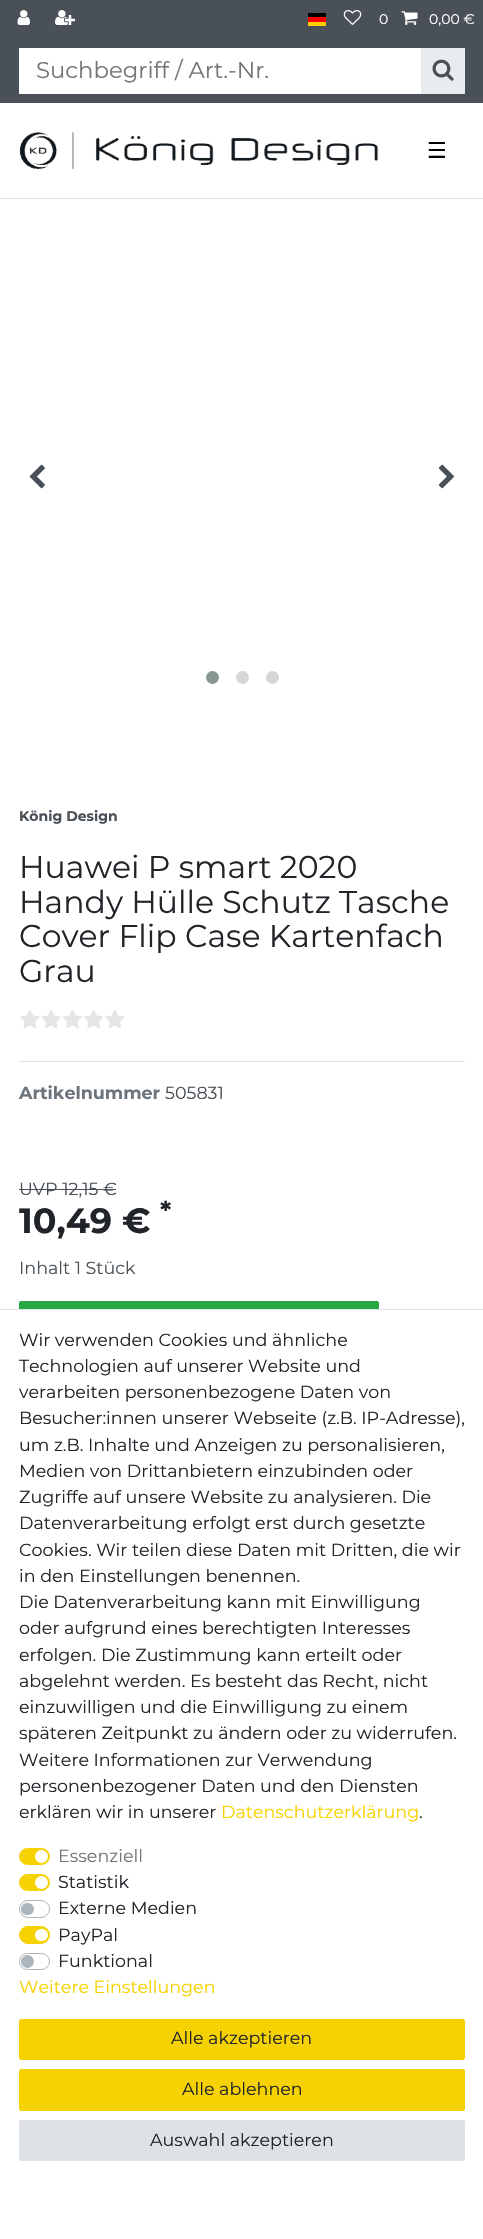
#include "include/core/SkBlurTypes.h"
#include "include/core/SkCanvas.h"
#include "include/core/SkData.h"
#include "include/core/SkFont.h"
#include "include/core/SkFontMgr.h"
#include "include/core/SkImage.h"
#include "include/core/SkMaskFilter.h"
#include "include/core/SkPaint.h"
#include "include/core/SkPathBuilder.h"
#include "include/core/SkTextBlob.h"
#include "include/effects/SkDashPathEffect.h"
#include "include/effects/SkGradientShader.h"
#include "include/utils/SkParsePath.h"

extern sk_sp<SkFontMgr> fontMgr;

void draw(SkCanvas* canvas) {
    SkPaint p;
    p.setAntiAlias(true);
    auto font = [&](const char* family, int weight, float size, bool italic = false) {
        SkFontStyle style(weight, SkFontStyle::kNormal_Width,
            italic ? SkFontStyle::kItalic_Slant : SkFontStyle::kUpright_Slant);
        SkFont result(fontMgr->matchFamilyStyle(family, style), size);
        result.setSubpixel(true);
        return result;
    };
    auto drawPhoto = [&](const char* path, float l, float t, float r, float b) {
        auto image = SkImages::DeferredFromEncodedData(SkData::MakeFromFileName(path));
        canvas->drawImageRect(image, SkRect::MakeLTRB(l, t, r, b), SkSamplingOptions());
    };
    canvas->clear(0xFFFFFFFF);
    p.setColor(0xFF495057);
    canvas->drawRect(SkRect::MakeLTRB(0, 0, 483, 103), p);
    drawPhoto("media/1.png", 17, 10, 30, 25);
    drawPhoto("media/2.png", 55, 10, 75, 25);
    {
        const struct { float l, t, r, b; SkColor color; } items[] = {
            {308, 22, 326, 26, 0xFFFFCC00},
            {308, 13, 326, 17, 0xFF000000},
            {308, 17, 326, 22, 0xFFFF0000},
        };
        for (auto [l, t, r, b, color] : items) {
            p.setColor(color);
            canvas->drawRect(SkRect::MakeLTRB(l, t, r, b), p);
        }
    }
    drawPhoto("media/3.png", 343, 10, 362, 25);
    auto font1 = font("Montserrat", 400, 14);
    p.setColor(0xFFFFFFFF);
    canvas->drawString("0", 379, 24, font1, p);
    drawPhoto("media/4.png", 401, 11, 418, 25);
    canvas->drawString("0,00 €", 429, 24, font1, p);
    canvas->drawRect(SkRect::MakeLTRB(19, 48, 421, 94), p);
    auto font2 = font("Montserrat", 400, 22.75f);
    p.setColor(0xFF757575);
    canvas->drawString("Suchbegriff / Art.-Nr.", 36, 78, font2, p);
    p.setColor(0xFFE9ECEF);
    canvas->drawRect(SkRect::MakeLTRB(421, 48, 465, 94), p);
    drawPhoto("media/5.png", 432, 59, 454, 81);
    p.setColor(0xFFDEE2E6);
    canvas->drawRect(SkRect::MakeLTRB(0, 198, 483, 199), p);
    drawPhoto("media/6.png", 19, 132, 379, 169);
    auto font3 = font("DejaVu Sans", 400, 22);
    p.setColor(0xFF000000);
    canvas->drawString("☰", 427, 158, font3, p);
    drawPhoto("media/7.png", 29, 464, 45, 489);
    drawPhoto("media/8.png", 438, 464, 454, 489);
    p.setColor(0xFF869791);
    canvas->drawCircle(212.5f, 677.5f, 6.5f, p);
    p.setColor(0xFFD6D6D6);
    canvas->drawCircle(242.5f, 677.5f, 6.5f, p);
    canvas->drawCircle(272.5f, 677.5f, 6.5f, p);
    auto font4 = font("Montserrat", 700, 14);
    p.setColor(0xFF495057);
    canvas->drawString("König Design", 19, 821, font4, p);
    auto font5 = font("Montserrat", 400, 31.5f);
    p.setColor(0xFF212529);
    {
        const struct { const char* s; float x, y; } items[] = {
            {"Huawei P smart 2020", 19, 878},
            {"Handy Hülle Schutz Tasche", 19, 913},
            {"Cover Flip Case Kartenfach", 19, 947},
            {"Grau", 19, 982},
        };
        for (auto [s, x, y] : items) {
            canvas->drawString(s, x, y, font5, p);
        }
    }
    drawPhoto("media/9.png", 20, 1010, 40, 1029);
    drawPhoto("media/10.png", 41, 1010, 61, 1029);
    drawPhoto("media/11.png", 63, 1010, 82, 1029);
    drawPhoto("media/12.png", 84, 1010, 103, 1029);
    drawPhoto("media/9.png", 105, 1010, 125, 1029);
    p.setColor(0xFFDEE2E6);
    canvas->drawRect(SkRect::MakeLTRB(19, 1061, 465, 1062), p);
    auto font6 = font("Montserrat", 700, 17.5f);
    p.setColor(0xFF6C757D);
    canvas->drawString("Artikelnummer", 19, 1099, font6, p);
    auto font7 = font("Montserrat", 400, 17.5f);
    p.setColor(0xFF495057);
    canvas->drawString("505831", 165, 1099, font7, p);
    canvas->drawString("UVP 12,15 €", 19, 1195, font7, p);
    canvas->drawRect(SkRect::MakeLTRB(19, 1189, 116, 1190), p);
    auto font8 = font("Montserrat", 700, 26);
    p.setColor(0xFF212529);
    canvas->drawString("*", 160, 1220, font8, p);
    auto font9 = font("Montserrat", 700, 35);
    canvas->drawString("10,49 €", 19, 1233, font9, p);
    p.setColor(0xFF495057);
    canvas->drawString("Inhalt 1 Stück", 19, 1274, font7, p);
    p.setColor(0xFF28A745);
    canvas->drawRoundRect(SkRect::MakeLTRB(19, 1301, 379, 1326), 2, 2, p);
    p.setColor(0xFFFFFFFF);
    canvas->drawRect(SkRect::MakeLTRB(19, 1310, 379, 1326), p);
    p.setColor(0xFFDEE2E6);
    canvas->drawRect(SkRect::MakeLTRB(0, 1309, 483, 1310), p);
    p.setColor(0xFF212529);
    {
        const struct { const char* s; float x, y; } items[] = {
            {"Wir verwenden Cookies und ähnliche", 19, 1346},
            {"Technologien auf unserer Website und", 19, 1372},
            {"verarbeiten personenbezogene Daten von", 19, 1398},
            {"Besucher:innen unserer Webseite (z.B. IP-Adresse),", 19, 1424},
            {"um z.B. Inhalte und Anzeigen zu personalisieren,", 19, 1451},
            {"Medien von Drittanbietern einzubinden oder", 19, 1477},
            {"Zugriffe auf unsere Website zu analysieren. Die", 19, 1503},
            {"Datenverarbeitung erfolgt erst durch gesetzte", 19, 1529},
            {"Cookies. Wir teilen diese Daten mit Dritten, die wir", 19, 1556},
            {"in den Einstellungen benennen.", 19, 1582},
            {"Die Datenverarbeitung kann mit Einwilligung", 19, 1608},
            {"oder aufgrund eines berechtigten Interesses", 19, 1634},
            {"erfolgen. Die Zustimmung kann erteilt oder", 19, 1661},
            {"abgelehnt werden. Es besteht das Recht, nicht", 19, 1687},
            {"einzuwilligen und die Einwilligung zu einem", 19, 1713},
            {"späteren Zeitpunkt zu ändern oder zu widerrufen.", 19, 1739},
            {"Weitere Informationen zur Verwendung", 19, 1766},
            {"personenbezogener Daten und den Diensten", 19, 1792},
            {"erklären wir in unserer", 19, 1818},
        };
        for (auto [s, x, y] : items) {
            canvas->drawString(s, x, y, font7, p);
        }
    }
    p.setColor(0xFFF7D202);
    canvas->drawString("Datenschutzerklärung", 221, 1818, font7, p);
    p.setColor(0xFF212529);
    canvas->drawString(".", 419, 1818, font7, p);
    p.setColor(0xFFF7D202);
    canvas->drawRoundRect(SkRect::MakeLTRB(19.5f, 1848.5f, 49.5f, 1864.5f), 8, 8, p);
    p.setStyle(SkPaint::kStroke_Style);
    p.setStrokeWidth(1);
    canvas->drawRoundRect(SkRect::MakeLTRB(19.5f, 1848.5f, 49.5f, 1864.5f), 8, 8, p);
    p.setStyle(SkPaint::kFill_Style);
    p.setColor(0xFF757575);
    canvas->drawString("Essenziell", 58, 1862, font7, p);
    p.setColor(0xFFFFFFFF);
    canvas->drawCircle(41.5f, 1856.5f, 6.5f, p);
    p.setColor(0xFFF7D202);
    canvas->drawRoundRect(SkRect::MakeLTRB(19.5f, 1874.5f, 49.5f, 1890.5f), 8, 8, p);
    p.setStyle(SkPaint::kStroke_Style);
    canvas->drawRoundRect(SkRect::MakeLTRB(19.5f, 1874.5f, 49.5f, 1890.5f), 8, 8, p);
    p.setStyle(SkPaint::kFill_Style);
    p.setColor(0xFF212529);
    canvas->drawString("Statistik", 58, 1888, font7, p);
    p.setColor(0xFFFFFFFF);
    canvas->drawCircle(41.5f, 1882.5f, 6.5f, p);
    p.setStyle(SkPaint::kStroke_Style);
    p.setColor(0xFFADB5BD);
    canvas->drawRoundRect(SkRect::MakeLTRB(19.5f, 1900.5f, 49.5f, 1917.5f), 8.5f, 8.5f, p);
    p.setStyle(SkPaint::kFill_Style);
    p.setColor(0xFF212529);
    canvas->drawString("Externe Medien", 58, 1914, font7, p);
    p.setColor(0xFFADB5BD);
    canvas->drawRoundRect(SkRect::MakeLTRB(21, 1903, 34, 1915), 6, 6, p);
    p.setColor(0xFFF7D202);
    canvas->drawRoundRect(SkRect::MakeLTRB(19.5f, 1926.5f, 49.5f, 1943.5f), 8.5f, 8.5f, p);
    p.setStyle(SkPaint::kStroke_Style);
    canvas->drawRoundRect(SkRect::MakeLTRB(19.5f, 1926.5f, 49.5f, 1943.5f), 8.5f, 8.5f, p);
    p.setStyle(SkPaint::kFill_Style);
    p.setColor(0xFF212529);
    canvas->drawString("PayPal", 58, 1941, font7, p);
    p.setColor(0xFFFFFFFF);
    canvas->drawRoundRect(SkRect::MakeLTRB(35, 1929, 48, 1941), 6, 6, p);
    p.setStyle(SkPaint::kStroke_Style);
    p.setColor(0xFFADB5BD);
    canvas->drawRoundRect(SkRect::MakeLTRB(19.5f, 1953.5f, 49.5f, 1969.5f), 8, 8, p);
    p.setStyle(SkPaint::kFill_Style);
    p.setColor(0xFF212529);
    canvas->drawString("Funktional", 58, 1967, font7, p);
    p.setColor(0xFFADB5BD);
    canvas->drawCircle(27.5f, 1961.5f, 6.5f, p);
    p.setColor(0xFFF7D202);
    canvas->drawString("Weitere Einstellungen", 19, 1993, font7, p);
    canvas->drawRoundRect(SkRect::MakeLTRB(19.5f, 2019.5f, 464.5f, 2059.5f), 1.5f, 1.5f, p);
    p.setStyle(SkPaint::kStroke_Style);
    canvas->drawRoundRect(SkRect::MakeLTRB(19.5f, 2019.5f, 464.5f, 2059.5f), 1.5f, 1.5f, p);
    p.setStyle(SkPaint::kFill_Style);
    p.setColor(0xFF212529);
    canvas->drawString("Alle akzeptieren", 171, 2044, font7, p);
    p.setColor(0xFFF7D202);
    canvas->drawRoundRect(SkRect::MakeLTRB(19.5f, 2069.5f, 464.5f, 2110.5f), 1.5f, 1.5f, p);
    p.setStyle(SkPaint::kStroke_Style);
    canvas->drawRoundRect(SkRect::MakeLTRB(19.5f, 2069.5f, 464.5f, 2110.5f), 1.5f, 1.5f, p);
    p.setStyle(SkPaint::kFill_Style);
    p.setColor(0xFF212529);
    canvas->drawString("Alle ablehnen", 182, 2095, font7, p);
    p.setColor(0xFFDEE2E6);
    canvas->drawRoundRect(SkRect::MakeLTRB(19.5f, 2120.5f, 464.5f, 2160.5f), 1.5f, 1.5f, p);
    p.setStyle(SkPaint::kStroke_Style);
    canvas->drawRoundRect(SkRect::MakeLTRB(19.5f, 2120.5f, 464.5f, 2160.5f), 1.5f, 1.5f, p);
    p.setStyle(SkPaint::kFill_Style);
    p.setColor(0xFF212529);
    canvas->drawString("Auswahl akzeptieren", 150, 2146, font7, p);
}
